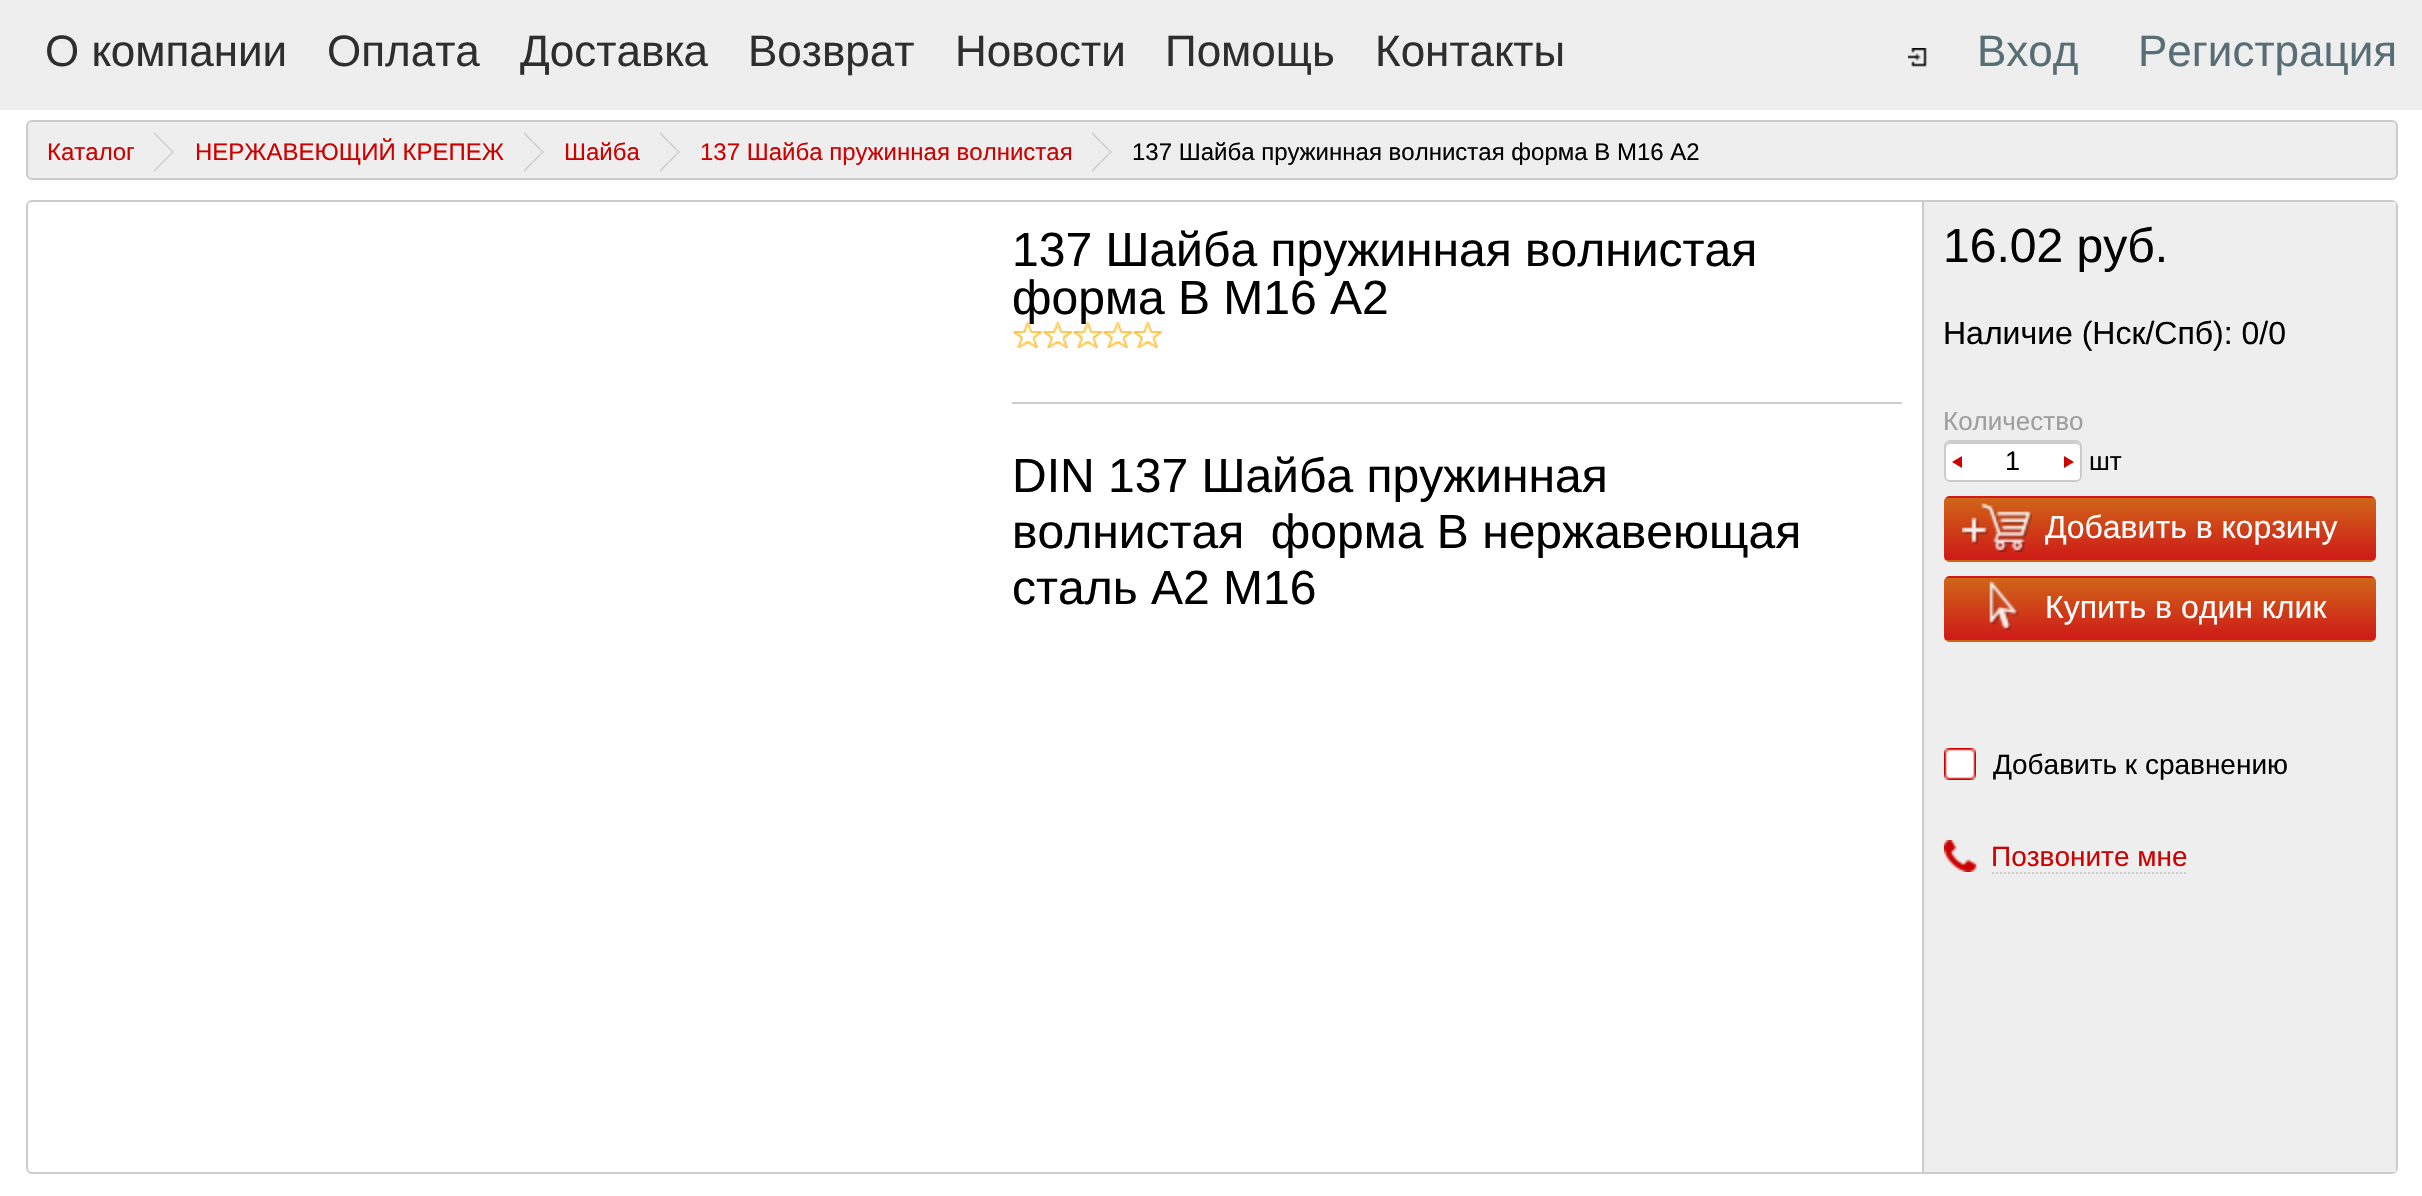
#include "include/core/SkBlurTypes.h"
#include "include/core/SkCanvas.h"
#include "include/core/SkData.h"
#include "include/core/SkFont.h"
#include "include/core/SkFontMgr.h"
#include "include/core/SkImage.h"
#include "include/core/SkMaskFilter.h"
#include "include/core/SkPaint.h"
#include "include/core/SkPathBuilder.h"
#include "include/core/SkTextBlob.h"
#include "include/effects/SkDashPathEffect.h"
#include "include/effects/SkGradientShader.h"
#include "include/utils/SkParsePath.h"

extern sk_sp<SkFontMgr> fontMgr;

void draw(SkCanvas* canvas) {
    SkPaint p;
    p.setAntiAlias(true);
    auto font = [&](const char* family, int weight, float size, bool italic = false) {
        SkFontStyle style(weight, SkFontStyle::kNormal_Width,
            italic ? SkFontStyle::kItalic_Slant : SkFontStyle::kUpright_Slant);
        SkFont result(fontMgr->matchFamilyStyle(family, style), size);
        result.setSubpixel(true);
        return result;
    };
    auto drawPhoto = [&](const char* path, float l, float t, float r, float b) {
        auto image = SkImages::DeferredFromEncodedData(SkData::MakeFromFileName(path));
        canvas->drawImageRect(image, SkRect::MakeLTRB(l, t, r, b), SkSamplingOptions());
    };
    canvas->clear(0xFFFFFFFF);
    p.setColor(0xFFEEEEEE);
    canvas->drawRect(SkRect::MakeLTRB(0, 0, 2422, 110), p);
    auto font1 = font("Liberation Sans", 400, 44);
    p.setColor(0xFF2E2E2E);
    {
        const struct { const char* s; float x, y; } items[] = {
            {"О компании", 45, 66},
            {"Оплата", 327, 66},
            {"Доставка", 520, 66},
            {"Возврат", 748, 66},
            {"Новости", 955, 66},
            {"Помощь", 1165, 66},
            {"Контакты", 1375, 66},
        };
        for (auto [s, x, y] : items) {
            canvas->drawString(s, x, y, font1, p);
        }
    }
    drawPhoto("media/1.png", 1908, 48, 1927, 67);
    p.setColor(0xFF576E75);
    canvas->drawString("Вход", 1977, 66, font1, p);
    canvas->drawString("Регистрация", 2138, 66, font1, p);
    p.setColor(0xFFEEEEEE);
    canvas->drawRoundRect(SkRect::MakeLTRB(27, 121, 2397, 179), 5, 5, p);
    p.setStyle(SkPaint::kStroke_Style);
    p.setStrokeWidth(2);
    p.setColor(0xFFCCCCCC);
    canvas->drawRoundRect(SkRect::MakeLTRB(27, 121, 2397, 179), 5, 5, p);
    auto font2 = font("Liberation Sans", 400, 24);
    p.setStyle(SkPaint::kFill_Style);
    p.setColor(0xFFCC0100);
    canvas->drawString("Каталог", 47, 160, font2, p);
    p.setColor(0xFFCCCCCC);
    canvas->drawPath(SkPathBuilder().moveTo(154, 172).lineTo(154, 132).lineTo(174, 152).close().detach(), p);
    p.setColor(0xFFEEEEEE);
    canvas->drawPath(SkPathBuilder().moveTo(154, 170).lineTo(154, 134).lineTo(172, 152).close().detach(), p);
    p.setColor(0xFFCC0100);
    canvas->drawString("НЕРЖАВЕЮЩИЙ КРЕПЕЖ", 195, 160, font2, p);
    p.setColor(0xFFCCCCCC);
    canvas->drawPath(SkPathBuilder().moveTo(524, 172).lineTo(524, 132).lineTo(544, 152).close().detach(), p);
    p.setColor(0xFFEEEEEE);
    canvas->drawPath(SkPathBuilder().moveTo(524, 170).lineTo(524, 134).lineTo(542, 152).close().detach(), p);
    p.setColor(0xFFCC0100);
    canvas->drawString("Шайба", 564, 160, font2, p);
    p.setColor(0xFFCCCCCC);
    canvas->drawPath(SkPathBuilder().moveTo(660, 172).lineTo(660, 132).lineTo(680, 152).close().detach(), p);
    p.setColor(0xFFEEEEEE);
    canvas->drawPath(SkPathBuilder().moveTo(660, 170).lineTo(660, 134).lineTo(678, 152).close().detach(), p);
    p.setColor(0xFFCC0100);
    canvas->drawString("137 Шайба пружинная волнистая", 700, 160, font2, p);
    p.setColor(0xFFCCCCCC);
    canvas->drawPath(SkPathBuilder().moveTo(1092, 172).lineTo(1092, 132).lineTo(1112, 152).close().detach(), p);
    p.setColor(0xFFEEEEEE);
    canvas->drawPath(SkPathBuilder().moveTo(1092, 170).lineTo(1092, 134).lineTo(1110, 152).close().detach(), p);
    p.setColor(0xFF000000);
    canvas->drawString("137 Шайба пружинная волнистая форма В М16 А2", 1132, 160, font2, p);
    p.setStyle(SkPaint::kStroke_Style);
    p.setColor(0xFFCCCCCC);
    canvas->drawRoundRect(SkRect::MakeLTRB(27, 201, 2397, 1173), 5, 5, p);
    p.setStyle(SkPaint::kFill_Style);
    canvas->drawRect(SkRect::MakeLTRB(1012, 402, 1902, 404), p);
    auto font3 = font("Liberation Sans", 400, 48);
    p.setColor(0xFF000000);
    canvas->drawString("137 Шайба пружинная волнистая", 1012, 266, font3, p);
    drawPhoto("media/2.png", 1012, 322, 1042, 348);
    drawPhoto("media/2.png", 1042, 322, 1072, 348);
    drawPhoto("media/2.png", 1072, 322, 1102, 348);
    drawPhoto("media/2.png", 1102, 322, 1132, 348);
    drawPhoto("media/2.png", 1132, 322, 1162, 348);
    {
        const struct { const char* s; float x, y; } items[] = {
            {"форма В М16 А2", 1012, 314},
            {"DIN 137 Шайба пружинная", 1012, 492},
            {"волнистая  форма В нержавеющая", 1012, 548},
            {"сталь А2 М16", 1012, 604},
        };
        for (auto [s, x, y] : items) {
            canvas->drawString(s, x, y, font3, p);
        }
    }
    p.setColor(0xFFEEEEEE);
    canvas->drawRect(SkRect::MakeLTRB(1924, 202, 2396, 1172), p);
    p.setColor(0xFFCCCCCC);
    canvas->drawRect(SkRect::MakeLTRB(1922, 202, 1924, 1172), p);
    p.setColor(0xFF000000);
    canvas->drawString("16.02 руб.", 1943, 262, font3, p);
    auto font4 = font("Liberation Sans", 400, 32);
    canvas->drawString("Наличие (Нск/Спб): 0/0", 1943, 344, font4, p);
    auto font5 = font("Liberation Sans", 400, 26);
    p.setColor(0xFF9E9E9E);
    canvas->drawString("Количество", 1943, 430, font5, p);
    p.setColor(0xFFFFFFFF);
    canvas->drawRoundRect(SkRect::MakeLTRB(1944, 440, 2082, 482), 6, 6, p);
    p.setColor(0xFFCCCCCC);
    canvas->drawPath(SkPathBuilder().moveTo(1950, 444).lineTo(2076, 444).cubicTo(2078, 444, 2080, 446, 2080, 448).lineTo(2080, 446).cubicTo(2080, 444, 2078, 442, 2076, 442).lineTo(1950, 442).cubicTo(1948, 442, 1946, 444, 1946, 446).lineTo(1946, 448).cubicTo(1946, 446, 1948, 444, 1950, 444).close().detach(), p);
    p.setStyle(SkPaint::kStroke_Style);
    canvas->drawRoundRect(SkRect::MakeLTRB(1945, 441, 2081, 481), 5, 5, p);
    p.setStyle(SkPaint::kFill_Style);
    p.setColor(0xFFCC0100);
    canvas->drawPath(SkPathBuilder().moveTo(1962, 456).lineTo(1962, 468).lineTo(1952, 462).close().detach(), p);
    auto font6 = font("Liberation Sans", 400, 27);
    p.setColor(0xFF000000);
    canvas->drawString("1", 2005, 470, font6, p);
    p.setColor(0xFFCC0100);
    canvas->drawPath(SkPathBuilder().moveTo(2064, 468).lineTo(2064, 456).lineTo(2074, 462).close().detach(), p);
    p.setColor(0xFF000000);
    canvas->drawString("шт", 2089, 470, font5, p);
    canvas->save();
    canvas->clipPath(SkPathBuilder().moveTo(1950, 496).lineTo(2370, 496).cubicTo(2373.5f, 496, 2376, 498.5f, 2376, 502).lineTo(2376, 556).cubicTo(2376, 559.5f, 2373.5f, 562, 2370, 562).lineTo(1950, 562).cubicTo(1946.5f, 562, 1944, 559.5f, 1944, 556).lineTo(1944, 502).cubicTo(1944, 498.5f, 1946.5f, 496, 1950, 496).close().detach(), true);
    {
        const SkColor colors[] = {0xFFCF6518, 0xFFCF1918};
        const float stops[] = {0, 1};
        const SkPoint ends[] = {{2160, 436}, {2160, 498}};
        p.setShader(SkGradientShader::MakeLinear(ends, colors, stops, 2, SkTileMode::kClamp));
        p.setAlpha(255);
    }
    canvas->drawRect(SkRect::MakeLTRB(1944, 496, 2376, 498), p);
    {
        const SkColor colors[] = {0xFFCF6518, 0xFFCF1918};
        const float stops[] = {0, 1};
        const SkPoint ends[] = {{2160, 498}, {2160, 560}};
        p.setShader(SkGradientShader::MakeLinear(ends, colors, stops, 2, SkTileMode::kClamp));
        p.setAlpha(255);
    }
    canvas->drawRect(SkRect::MakeLTRB(1944, 498, 2376, 560), p);
    {
        const SkColor colors[] = {0xFFCF6518, 0xFFCF1918};
        const float stops[] = {0, 1};
        const SkPoint ends[] = {{2160, 560}, {2160, 622}};
        p.setShader(SkGradientShader::MakeLinear(ends, colors, stops, 2, SkTileMode::kClamp));
        p.setAlpha(255);
    }
    canvas->drawRect(SkRect::MakeLTRB(1944, 560, 2376, 562), p);
    canvas->restore();
    drawPhoto("media/3.png", 1962, 503, 2032, 552);
    p.setShader(nullptr);
    p.setColor(0xFFFDFDFD);
    canvas->drawString("Добавить в корзину", 2045, 538, font4, p);
    canvas->save();
    canvas->clipPath(SkPathBuilder().moveTo(1950, 576).lineTo(2370, 576).cubicTo(2373.5f, 576, 2376, 578.5f, 2376, 582).lineTo(2376, 636).cubicTo(2376, 639.5f, 2373.5f, 642, 2370, 642).lineTo(1950, 642).cubicTo(1946.5f, 642, 1944, 639.5f, 1944, 636).lineTo(1944, 582).cubicTo(1944, 578.5f, 1946.5f, 576, 1950, 576).close().detach(), true);
    {
        const SkColor colors[] = {0xFFCF6518, 0xFFCF1918};
        const float stops[] = {0, 1};
        const SkPoint ends[] = {{2160, 516}, {2160, 578}};
        p.setShader(SkGradientShader::MakeLinear(ends, colors, stops, 2, SkTileMode::kClamp));
        p.setAlpha(255);
    }
    canvas->drawRect(SkRect::MakeLTRB(1944, 576, 2376, 578), p);
    {
        const SkColor colors[] = {0xFFCF6518, 0xFFCF1918};
        const float stops[] = {0, 1};
        const SkPoint ends[] = {{2160, 578}, {2160, 640}};
        p.setShader(SkGradientShader::MakeLinear(ends, colors, stops, 2, SkTileMode::kClamp));
        p.setAlpha(255);
    }
    canvas->drawRect(SkRect::MakeLTRB(1944, 578, 2376, 640), p);
    {
        const SkColor colors[] = {0xFFCF6518, 0xFFCF1918};
        const float stops[] = {0, 1};
        const SkPoint ends[] = {{2160, 640}, {2160, 702}};
        p.setShader(SkGradientShader::MakeLinear(ends, colors, stops, 2, SkTileMode::kClamp));
        p.setAlpha(255);
    }
    canvas->drawRect(SkRect::MakeLTRB(1944, 640, 2376, 642), p);
    canvas->restore();
    drawPhoto("media/4.png", 1989, 581, 2019, 631);
    p.setShader(nullptr);
    p.setColor(0xFFFDFDFD);
    canvas->drawString("Купить в один клик", 2045, 618, font4, p);
    drawPhoto("media/5.png", 1944, 748, 1976, 780);
    auto font7 = font("Liberation Sans", 400, 28);
    p.setColor(0xFF000000);
    canvas->drawString("Добавить к сравнению", 1993, 774, font7, p);
    p.setStyle(SkPaint::kStroke_Style);
    p.setColor(0xFFCCCCCC);
    p.setPathEffect(SkDashPathEffect::Make({{2, 2}}, 0));
    canvas->drawPath(SkPathBuilder().moveTo(1992, 873).lineTo(2188, 873).detach(), p);
    p.setPathEffect(nullptr);
    drawPhoto("media/6.png", 1944, 840, 1977, 872);
    p.setStyle(SkPaint::kFill_Style);
    p.setColor(0xFFCC0100);
    canvas->drawString("Позвоните мне", 1991, 866, font7, p);
}
